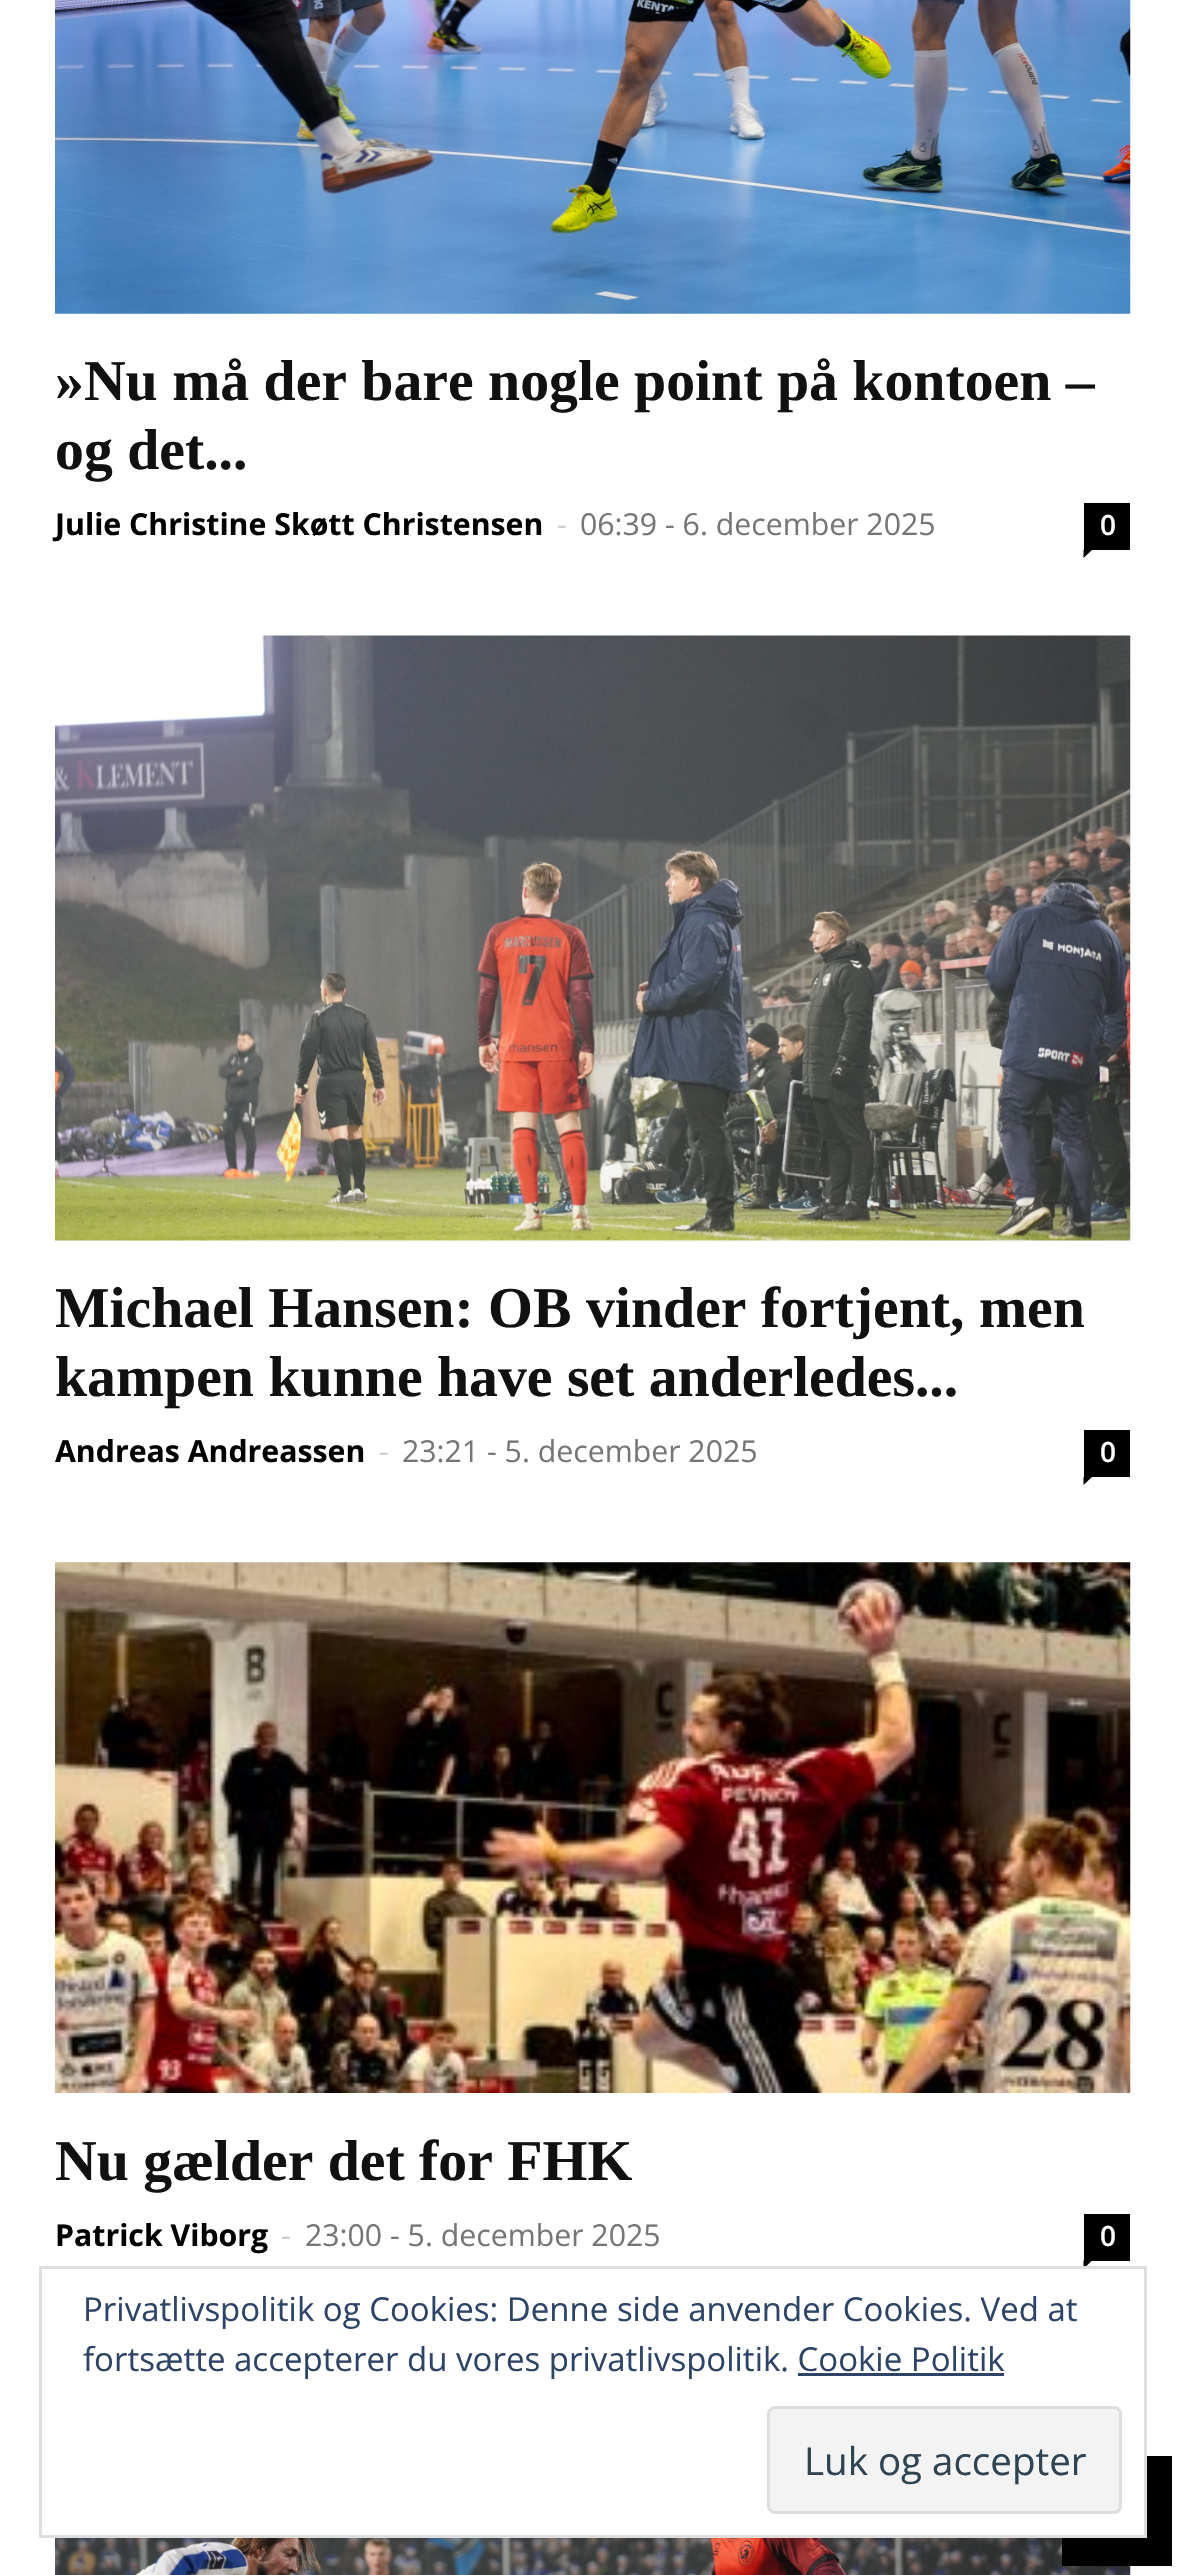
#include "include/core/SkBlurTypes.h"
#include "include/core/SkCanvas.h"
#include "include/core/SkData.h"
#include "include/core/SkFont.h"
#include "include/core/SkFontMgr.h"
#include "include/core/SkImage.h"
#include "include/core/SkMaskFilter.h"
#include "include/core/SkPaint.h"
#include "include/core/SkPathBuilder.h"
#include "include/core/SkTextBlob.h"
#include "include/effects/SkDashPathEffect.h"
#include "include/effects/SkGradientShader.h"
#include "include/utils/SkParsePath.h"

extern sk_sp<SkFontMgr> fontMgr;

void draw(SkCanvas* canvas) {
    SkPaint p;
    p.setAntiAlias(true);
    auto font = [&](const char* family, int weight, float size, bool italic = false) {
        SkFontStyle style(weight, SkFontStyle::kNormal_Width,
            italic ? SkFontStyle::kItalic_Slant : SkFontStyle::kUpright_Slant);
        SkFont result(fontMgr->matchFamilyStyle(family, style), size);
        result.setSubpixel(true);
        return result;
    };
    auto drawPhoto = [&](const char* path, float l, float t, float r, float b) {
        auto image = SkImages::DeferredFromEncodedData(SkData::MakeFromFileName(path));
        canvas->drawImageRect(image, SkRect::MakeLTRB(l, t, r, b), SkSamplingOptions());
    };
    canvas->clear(0xFFFFFFFF);
    drawPhoto("media/1.png", 55, 0, 1131, 314);
    auto font1 = font("Liberation Serif", 700, 57.75f);
    p.setColor(0xFF111111);
    canvas->drawString("»Nu må der bare nogle point på kontoen –", 55, 400, font1, p);
    canvas->drawString("og det...", 55, 469, font1, p);
    auto font2 = font("Open Sans", 700, 30.25f);
    p.setColor(0xFF000000);
    canvas->drawString("Julie Christine Skøtt Christensen", 55, 535, font2, p);
    auto font3 = font("Open Sans", 400, 30.25f);
    p.setColor(0xFFCCCCCC);
    canvas->drawString("-", 557, 535, font3, p);
    p.setColor(0xFF767676);
    canvas->drawString("06:39 - 6. december 2025", 580, 535, font3, p);
    p.setColor(0xFF000000);
    canvas->drawRect(SkRect::MakeLTRB(1084, 503, 1130, 550), p);
    auto font4 = font("Open Sans", 600, 28);
    p.setColor(0xFFFFFFFF);
    canvas->drawString("0", 1100, 535, font4, p);
    p.setColor(0xFF000000);
    canvas->drawPath(SkPathBuilder().moveTo(1083.5f, 550).lineTo(1092, 550).lineTo(1083.5f, 558).close().detach(), p);
    drawPhoto("media/2.png", 55, 635, 1131, 1241);
    p.setColor(0xFF111111);
    canvas->drawString("Michael Hansen: OB vinder fortjent, men", 55, 1327, font1, p);
    canvas->drawString("kampen kunne have set anderledes...", 55, 1396, font1, p);
    p.setColor(0xFF000000);
    canvas->drawString("Andreas Andreassen", 55, 1462, font2, p);
    p.setColor(0xFFCCCCCC);
    canvas->drawString("-", 379, 1462, font3, p);
    p.setColor(0xFF767676);
    canvas->drawString("23:21 - 5. december 2025", 402, 1462, font3, p);
    p.setColor(0xFF000000);
    canvas->drawRect(SkRect::MakeLTRB(1084, 1430, 1130, 1477), p);
    p.setColor(0xFFFFFFFF);
    canvas->drawString("0", 1100, 1462, font4, p);
    p.setColor(0xFF000000);
    canvas->drawPath(SkPathBuilder().moveTo(1083.5f, 1477).lineTo(1092, 1477).lineTo(1083.5f, 1485).close().detach(), p);
    drawPhoto("media/3.png", 55, 1562, 1131, 2093);
    p.setColor(0xFF111111);
    canvas->drawString("Nu gælder det for FHK", 55, 2180, font1, p);
    p.setColor(0xFF000000);
    canvas->drawString("Patrick Viborg", 55, 2246, font2, p);
    p.setColor(0xFFCCCCCC);
    canvas->drawString("-", 281, 2246, font3, p);
    p.setColor(0xFF767676);
    canvas->drawString("23:00 - 5. december 2025", 305, 2246, font3, p);
    p.setColor(0xFF000000);
    canvas->drawRect(SkRect::MakeLTRB(1084, 2214, 1130, 2261), p);
    p.setColor(0xFFFFFFFF);
    canvas->drawString("0", 1100, 2246, font4, p);
    p.setColor(0xFF000000);
    canvas->drawPath(SkPathBuilder().moveTo(1083.5f, 2260.5f).lineTo(1092, 2260.5f).lineTo(1083.5f, 2269).close().detach(), p);
    drawPhoto("media/4.png", 55, 2538, 1131, 2575);
    canvas->drawRect(SkRect::MakeLTRB(1062, 2456, 1172, 2566), p);
    p.setColor(0xFFFFFFFF);
    canvas->drawRect(SkRect::MakeLTRB(1062, 2456, 1144, 2535), p);
    p.setStyle(SkPaint::kStroke_Style);
    p.setStrokeWidth(3);
    p.setColor(0xFFDEDEDE);
    canvas->drawRect(SkRect::MakeLTRB(40.5f, 2267.5f, 1145.5f, 2536.5f), p);
    auto font5 = font("Open Sans", 400, 33);
    p.setStyle(SkPaint::kFill_Style);
    p.setColor(0xFF2E4467);
    canvas->drawString("Privatlivspolitik og Cookies: Denne side anvender Cookies. Ved at", 83, 2321, font5, p);
    canvas->drawString("fortsætte accepterer du vores privatlivspolitik. Cookie Politik", 83, 2371, font5, p);
    canvas->drawRect(SkRect::MakeLTRB(798, 2373, 1004, 2376), p);
    p.setColor(0xFFF3F3F3);
    canvas->drawRoundRect(SkRect::MakeLTRB(768.5f, 2407.5f, 1120.5f, 2512.5f), 6.5f, 6.5f, p);
    p.setStyle(SkPaint::kStroke_Style);
    p.setColor(0xFFDEDEDE);
    canvas->drawRoundRect(SkRect::MakeLTRB(768.5f, 2407.5f, 1120.5f, 2512.5f), 6.5f, 6.5f, p);
    auto font6 = font("Open Sans", 400, 38.5f);
    p.setStyle(SkPaint::kFill_Style);
    p.setColor(0xFF2E4453);
    canvas->drawString("Luk og accepter", 804, 2475, font6, p);
}
